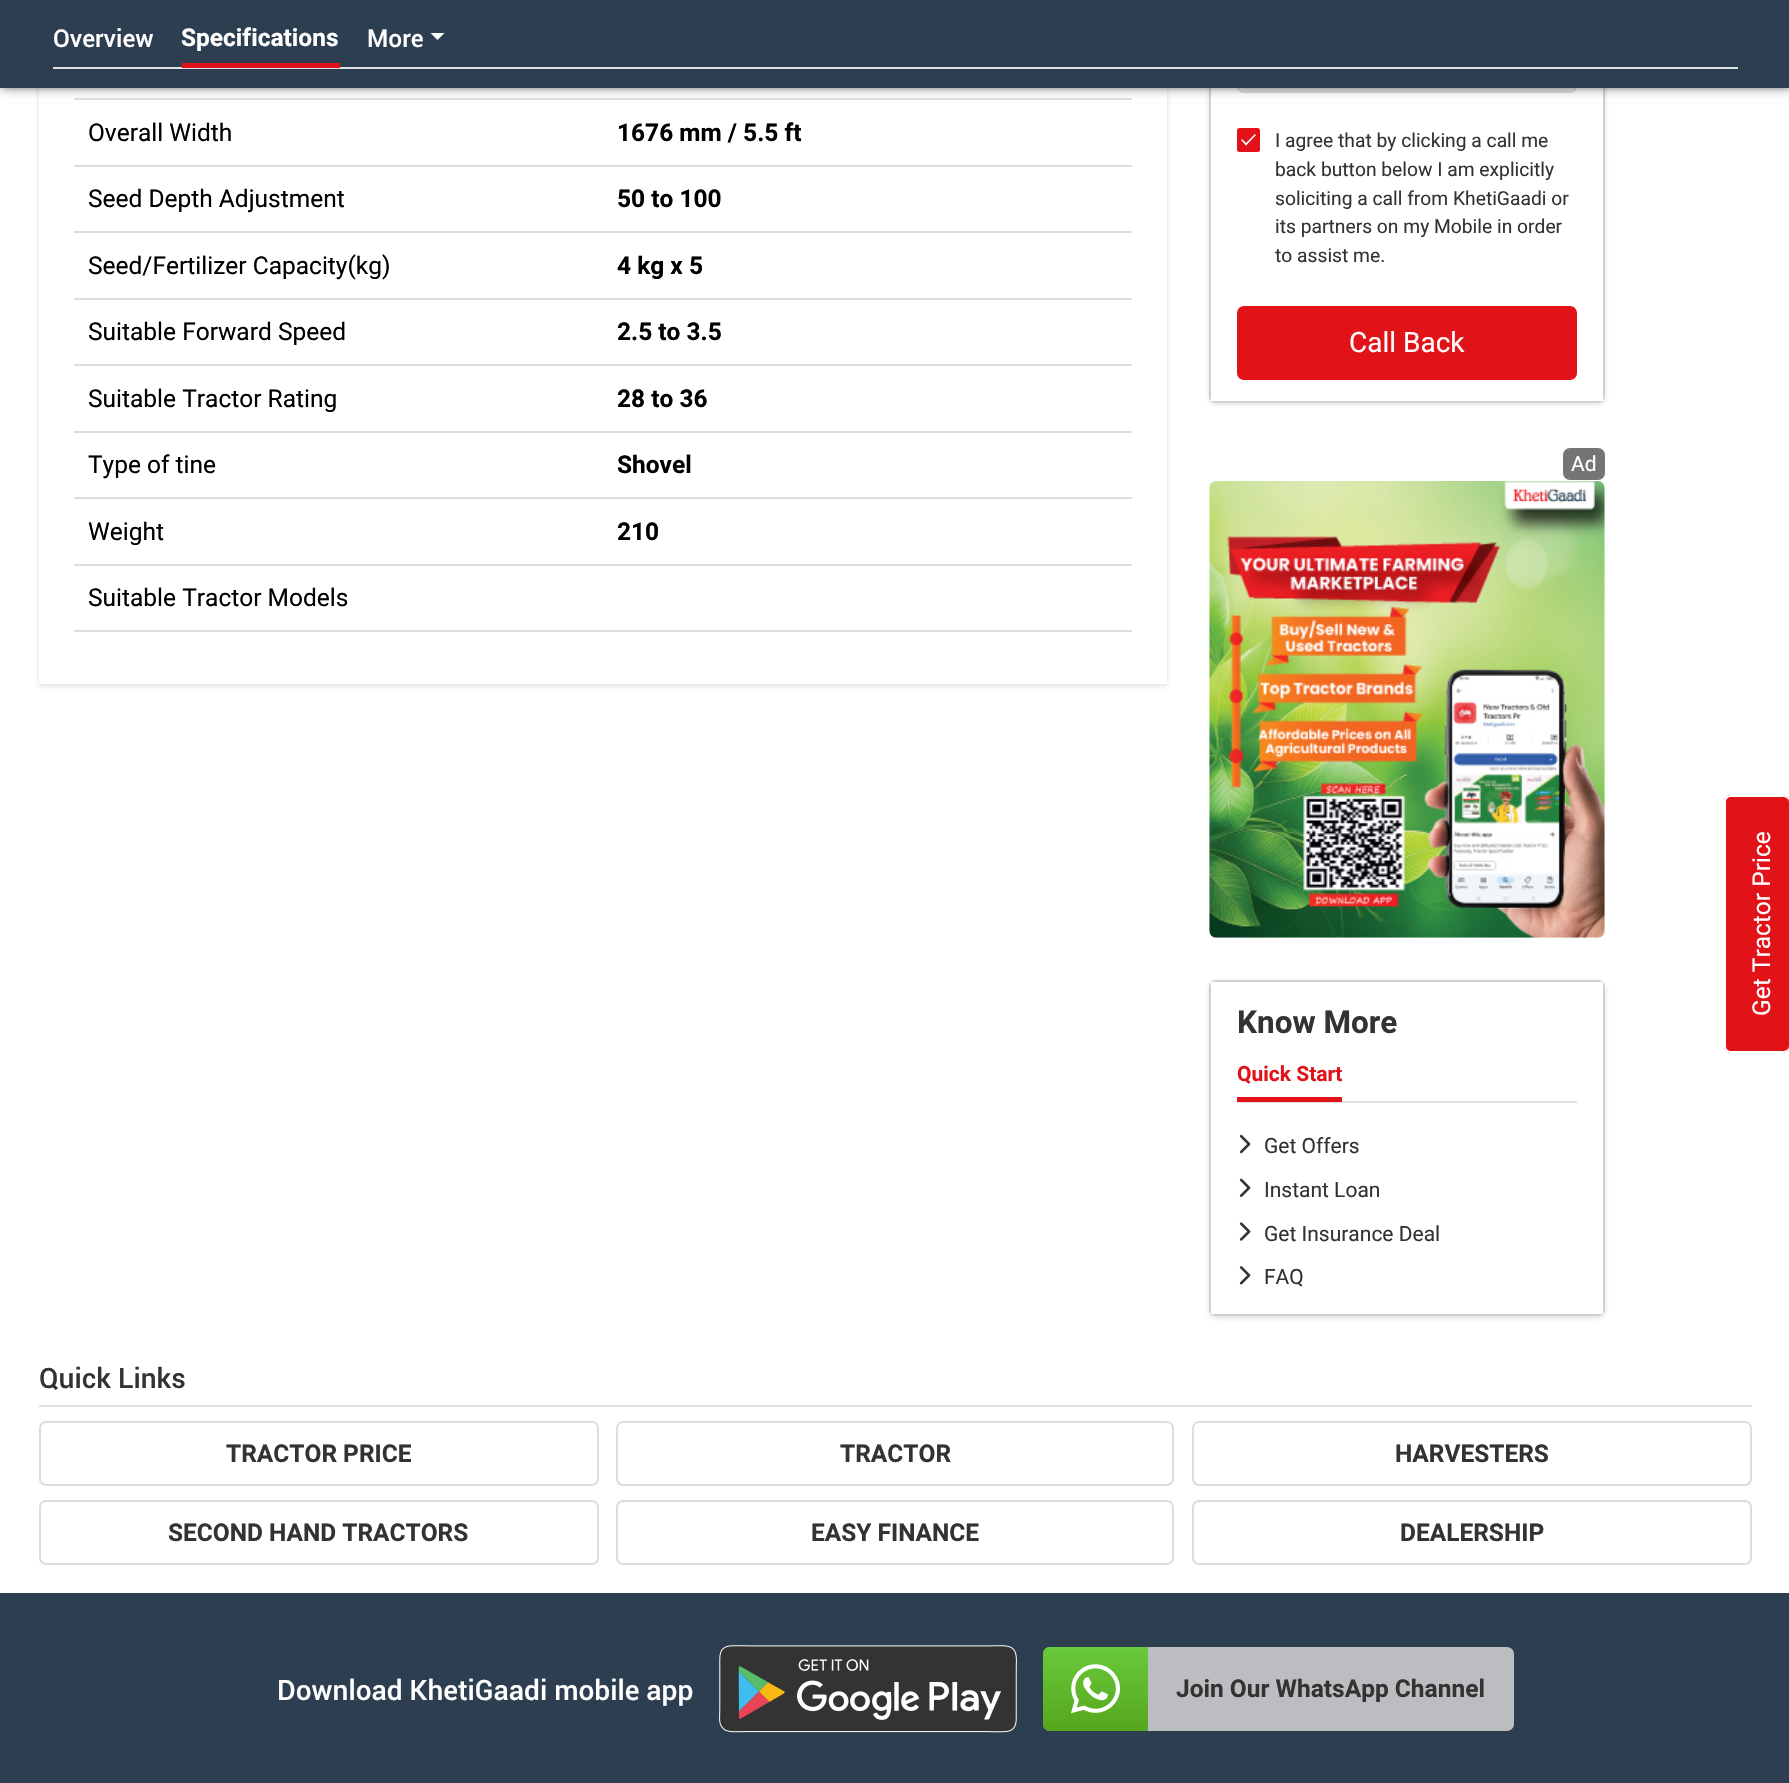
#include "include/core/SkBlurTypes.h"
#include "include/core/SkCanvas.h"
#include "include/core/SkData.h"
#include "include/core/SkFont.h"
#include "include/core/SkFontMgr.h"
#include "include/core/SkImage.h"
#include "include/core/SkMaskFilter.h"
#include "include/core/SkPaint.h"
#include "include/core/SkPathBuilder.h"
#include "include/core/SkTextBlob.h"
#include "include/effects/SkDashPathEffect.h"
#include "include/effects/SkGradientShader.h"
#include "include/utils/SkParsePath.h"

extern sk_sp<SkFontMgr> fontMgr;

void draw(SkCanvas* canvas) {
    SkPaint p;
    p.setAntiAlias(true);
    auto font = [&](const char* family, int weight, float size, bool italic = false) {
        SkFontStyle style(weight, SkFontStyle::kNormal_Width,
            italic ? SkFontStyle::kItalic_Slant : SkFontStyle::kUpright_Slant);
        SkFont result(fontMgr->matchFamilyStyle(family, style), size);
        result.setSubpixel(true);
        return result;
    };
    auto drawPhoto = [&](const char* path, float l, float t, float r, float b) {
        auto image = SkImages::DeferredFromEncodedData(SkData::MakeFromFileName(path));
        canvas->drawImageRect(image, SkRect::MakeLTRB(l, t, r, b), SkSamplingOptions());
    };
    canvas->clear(0xFFFFFFFF);
    canvas->save();
    canvas->clipPath(SkPathBuilder(SkPathFillType::kEvenOdd).moveTo(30, 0).lineTo(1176, 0).lineTo(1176, 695).lineTo(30, 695).close().moveTo(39, -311).lineTo(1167, -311).lineTo(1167, 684).lineTo(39, 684).close().detach(), true);
    p.setColor(0x2624272C);
    p.setMaskFilter(SkMaskFilter::MakeBlur(kNormal_SkBlurStyle, 2.5f));
    canvas->drawRect(SkRect::MakeLTRB(39, -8, 1167, 686), p);
    p.setMaskFilter(nullptr);
    canvas->restore();
    p.setColor(0xFFDDDDDD);
    canvas->drawRect(SkRect::MakeLTRB(74, 98, 1132, 100), p);
    p.setColor(0x2624272C);
    p.setMaskFilter(SkMaskFilter::MakeBlur(kNormal_SkBlurStyle, 2.5f));
    canvas->drawRoundRect(SkRect::MakeLTRB(1209, -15, 1605, 404), 7, 7, p);
    p.setMaskFilter(nullptr);
    p.setColor(0xFFFFFFFF);
    canvas->drawRoundRect(SkRect::MakeLTRB(1209, -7, 1605, 403), 7, 7, p);
    p.setStyle(SkPaint::kStroke_Style);
    p.setStrokeWidth(2);
    p.setColor(0x2E000000);
    canvas->drawRoundRect(SkRect::MakeLTRB(1210, -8, 1604, 402), 6, 6, p);
    p.setColor(0xFFDDDDDD);
    canvas->drawRoundRect(SkRect::MakeLTRB(1238, 13, 1576, 92), 6, 6, p);
    p.setStyle(SkPaint::kFill_Style);
    p.setColor(0xFFE9ECEF);
    canvas->drawRoundRect(SkRect::MakeLTRB(1239, 14, 1575, 91), 7, 7, p);
    p.setColor(0x66000000);
    p.setMaskFilter(SkMaskFilter::MakeBlur(kNormal_SkBlurStyle, 5));
    canvas->drawRect(SkRect::MakeLTRB(2, 2, 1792, 89), p);
    p.setMaskFilter(nullptr);
    p.setColor(0x2624272C);
    p.setMaskFilter(SkMaskFilter::MakeBlur(kNormal_SkBlurStyle, 2));
    canvas->drawRect(SkRect::MakeLTRB(0, 2, 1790, 89), p);
    p.setMaskFilter(nullptr);
    p.setColor(0xFF2C3E50);
    canvas->drawRect(SkRect::MakeLTRB(0, 0, 1789, 88), p);
    p.setColor(0xFFDEE2E6);
    canvas->drawRect(SkRect::MakeLTRB(53, 67, 1738, 69), p);
    auto font1 = font("Roboto", 500, 24.5f);
    p.setColor(0xFFFFFFFF);
    canvas->drawString("Overview", 53, 47, font1, p);
    p.setColor(0xFFE21219);
    canvas->drawRect(SkRect::MakeLTRB(182, 63, 340, 68), p);
    auto font2 = font("Roboto", 700, 24.5f);
    p.setColor(0xFFFFFFFF);
    canvas->drawString("Specifications", 181, 46, font2, p);
    canvas->drawString("More", 367, 47, font1, p);
    canvas->drawPath(SkPathBuilder().moveTo(430.5f, 33).lineTo(444.5f, 33).lineTo(437.5f, 40).close().detach(), p);
    p.setColor(0xFFDDDDDD);
    canvas->drawRect(SkRect::MakeLTRB(74, 165, 1132, 167), p);
    auto font3 = font("Roboto", 400, 24.5f);
    p.setColor(0xFF000000);
    canvas->drawString("Overall Width", 88, 141, font3, p);
    canvas->drawString("1676 mm / 5.5 ft", 617, 141, font2, p);
    p.setColor(0xFFDDDDDD);
    canvas->drawRect(SkRect::MakeLTRB(74, 231, 1132, 233), p);
    p.setColor(0xFF000000);
    canvas->drawString("Seed Depth Adjustment", 88, 207, font3, p);
    canvas->drawString("50 to 100", 617, 207, font2, p);
    p.setColor(0xFFDDDDDD);
    canvas->drawRect(SkRect::MakeLTRB(74, 298, 1132, 300), p);
    p.setColor(0xFF000000);
    canvas->drawString("Seed/Fertilizer Capacity(kg)", 88, 274, font3, p);
    canvas->drawString("4 kg x 5", 617, 274, font2, p);
    p.setColor(0xFFDDDDDD);
    canvas->drawRect(SkRect::MakeLTRB(74, 364, 1132, 366), p);
    p.setColor(0xFF000000);
    canvas->drawString("Suitable Forward Speed", 88, 340, font3, p);
    canvas->drawString("2.5 to 3.5", 617, 340, font2, p);
    p.setColor(0xFFDDDDDD);
    canvas->drawRect(SkRect::MakeLTRB(74, 431, 1132, 433), p);
    p.setColor(0xFF000000);
    canvas->drawString("Suitable Tractor Rating", 88, 407, font3, p);
    canvas->drawString("28 to 36", 617, 407, font2, p);
    p.setColor(0xFFDDDDDD);
    canvas->drawRect(SkRect::MakeLTRB(74, 497, 1132, 499), p);
    p.setColor(0xFF000000);
    canvas->drawString("Type of tine", 88, 473, font3, p);
    canvas->drawString("Shovel", 617, 473, font2, p);
    p.setColor(0xFFDDDDDD);
    canvas->drawRect(SkRect::MakeLTRB(74, 564, 1132, 566), p);
    p.setColor(0xFF000000);
    canvas->drawString("Weight", 88, 540, font3, p);
    canvas->drawString("210", 617, 540, font2, p);
    p.setColor(0xFFDDDDDD);
    canvas->drawRect(SkRect::MakeLTRB(74, 630, 1132, 632), p);
    p.setColor(0xFF000000);
    canvas->drawString("Suitable Tractor Models", 88, 606, font3, p);
    p.setColor(0xFFFFFFFF);
    canvas->drawRect(SkRect::MakeLTRB(1211, 397, 1603, 401), p);
    p.setColor(0xFFE21219);
    canvas->drawRoundRect(SkRect::MakeLTRB(1237, 128, 1260, 152), 2.5f, 2.5f, p);
    auto font4 = font("Roboto", 400, 19.25f);
    p.setColor(0xFF333333);
    canvas->drawString("I agree that by clicking a call me", 1275, 147, font4, p);
    p.setColor(0xFFFFFFFF);
    canvas->drawPath(SkPathBuilder().moveTo(1245, 144).lineTo(1255, 134).lineTo(1256, 135).lineTo(1246, 145.5f).close().detach(), p);
    canvas->drawPath(SkPathBuilder().moveTo(1241, 140).lineTo(1242, 139).lineTo(1247, 144).lineTo(1246, 145.5f).close().detach(), p);
    p.setColor(0xFF333333);
    {
        const struct { const char* s; float x, y; } items[] = {
            {"back button below I am explicitly", 1275, 176},
            {"soliciting a call from KhetiGaadi or", 1275, 205},
            {"its partners on my Mobile in order", 1275, 233},
            {"to assist me.", 1275, 262},
        };
        for (auto [s, x, y] : items) {
            canvas->drawString(s, x, y, font4, p);
        }
    }
    p.setColor(0xFFE21219);
    canvas->drawRoundRect(SkRect::MakeLTRB(1238, 307, 1576, 379), 6, 6, p);
    p.setStyle(SkPaint::kStroke_Style);
    canvas->drawRoundRect(SkRect::MakeLTRB(1238, 307, 1576, 379), 6, 6, p);
    auto font5 = font("Roboto", 400, 28);
    p.setStyle(SkPaint::kFill_Style);
    p.setColor(0xFFFFFFFF);
    canvas->drawString("Call Back", 1349, 352, font5, p);
    p.setColor(0xFF757575);
    canvas->drawRoundRect(SkRect::MakeLTRB(1563, 448, 1605, 480), 7, 7, p);
    auto font6 = font("Roboto", 400, 21);
    p.setColor(0xFFFFFFFF);
    canvas->drawString("Ad", 1571, 471, font6, p);
    drawPhoto("media/1.png", 1209, 481, 1605, 938);
    p.setColor(0x2624272C);
    p.setMaskFilter(SkMaskFilter::MakeBlur(kNormal_SkBlurStyle, 2.5f));
    canvas->drawRoundRect(SkRect::MakeLTRB(1209, 982, 1605, 1318), 7, 7, p);
    p.setMaskFilter(nullptr);
    p.setColor(0xFFFFFFFF);
    canvas->drawRoundRect(SkRect::MakeLTRB(1209, 980, 1605, 1316), 7, 7, p);
    p.setStyle(SkPaint::kStroke_Style);
    p.setColor(0x2E000000);
    canvas->drawRoundRect(SkRect::MakeLTRB(1210, 981, 1604, 1315), 6, 6, p);
    p.setStyle(SkPaint::kFill_Style);
    p.setColor(0xFFFFFFFF);
    canvas->drawRect(SkRect::MakeLTRB(1211, 982, 1603, 1314), p);
    auto font7 = font("Roboto", 700, 31.5f);
    p.setColor(0xFF333333);
    canvas->drawString("Know More", 1237, 1033, font7, p);
    p.setColor(0xFFDEE2E6);
    canvas->drawRect(SkRect::MakeLTRB(1237, 1101, 1577, 1103), p);
    p.setColor(0xFFE21219);
    canvas->drawRect(SkRect::MakeLTRB(1237, 1097, 1342, 1102), p);
    auto font8 = font("Roboto", 700, 21);
    canvas->drawString("Quick Start", 1237, 1081, font8, p);
    drawPhoto("media/2.png", 1239, 1134, 1251, 1154);
    p.setColor(0xFF333333);
    canvas->drawString("Get Offers", 1264, 1153, font6, p);
    drawPhoto("media/3.png", 1239, 1178, 1251, 1197);
    canvas->drawString("Instant Loan", 1264, 1197, font6, p);
    drawPhoto("media/4.png", 1239, 1222, 1251, 1241);
    canvas->drawString("Get Insurance Deal", 1264, 1241, font6, p);
    drawPhoto("media/5.png", 1239, 1266, 1251, 1285);
    canvas->drawString("FAQ", 1264, 1284, font6, p);
    p.setColor(0xFFDEE2E6);
    canvas->drawRect(SkRect::MakeLTRB(39, 1405, 1752, 1407), p);
    auto font9 = font("Roboto", 500, 28);
    p.setColor(0xFF333333);
    canvas->drawString("Quick Links", 39, 1388, font9, p);
    p.setStyle(SkPaint::kStroke_Style);
    p.setColor(0xFFDDDDDD);
    canvas->drawRoundRect(SkRect::MakeLTRB(40, 1422, 598, 1485), 6, 6, p);
    p.setStyle(SkPaint::kFill_Style);
    p.setColor(0xFF333333);
    canvas->drawString("TRACTOR PRICE", 226, 1462, font2, p);
    p.setStyle(SkPaint::kStroke_Style);
    p.setColor(0xFFDDDDDD);
    canvas->drawRoundRect(SkRect::MakeLTRB(617, 1422, 1173, 1485), 6, 6, p);
    p.setStyle(SkPaint::kFill_Style);
    p.setColor(0xFF333333);
    canvas->drawString("TRACTOR", 840, 1462, font2, p);
    p.setStyle(SkPaint::kStroke_Style);
    p.setColor(0xFFDDDDDD);
    canvas->drawRoundRect(SkRect::MakeLTRB(1193, 1422, 1751, 1485), 6, 6, p);
    p.setStyle(SkPaint::kFill_Style);
    p.setColor(0xFF333333);
    canvas->drawString("HARVESTERS", 1395, 1462, font2, p);
    p.setStyle(SkPaint::kStroke_Style);
    p.setColor(0xFFDDDDDD);
    canvas->drawRoundRect(SkRect::MakeLTRB(40, 1501, 598, 1564), 6, 6, p);
    p.setStyle(SkPaint::kFill_Style);
    p.setColor(0xFF333333);
    canvas->drawString("SECOND HAND TRACTORS", 168, 1541, font2, p);
    p.setStyle(SkPaint::kStroke_Style);
    p.setColor(0xFFDDDDDD);
    canvas->drawRoundRect(SkRect::MakeLTRB(617, 1501, 1173, 1564), 6, 6, p);
    p.setStyle(SkPaint::kFill_Style);
    p.setColor(0xFF333333);
    canvas->drawString("EASY FINANCE", 811, 1541, font2, p);
    p.setStyle(SkPaint::kStroke_Style);
    p.setColor(0xFFDDDDDD);
    canvas->drawRoundRect(SkRect::MakeLTRB(1193, 1501, 1751, 1564), 6, 6, p);
    p.setStyle(SkPaint::kFill_Style);
    p.setColor(0xFF333333);
    canvas->drawString("DEALERSHIP", 1400, 1541, font2, p);
    p.setColor(0xFFE21219);
    canvas->drawPath(SkPathBuilder().moveTo(1724, 1046).lineTo(1724, 802).cubicTo(1724, 798, 1727, 795, 1731, 795).lineTo(1782, 795).cubicTo(1786, 795, 1789, 798, 1789, 802).lineTo(1789, 1046).cubicTo(1789, 1050, 1786, 1053, 1782, 1053).lineTo(1731, 1053).cubicTo(1727, 1053, 1724, 1050, 1724, 1046).close().detach(), p);
    p.setColor(0xFFFFFFFF);
    canvas->drawPath(SkPathBuilder(SkPathFillType::kEvenOdd).moveTo(1724, 1046).lineTo(1724, 802).cubicTo(1724, 798, 1727, 795, 1731, 795).lineTo(1782, 795).cubicTo(1786, 795, 1789, 798, 1789, 802).lineTo(1789, 1046).cubicTo(1789, 1050, 1786, 1053, 1782, 1053).lineTo(1731, 1053).cubicTo(1727, 1053, 1724, 1050, 1724, 1046).close().moveTo(1726, 1046).lineTo(1726, 802).cubicTo(1726, 799, 1728, 797, 1731, 797).lineTo(1782, 797).cubicTo(1786, 797, 1789, 799, 1789, 802).lineTo(1789, 1046).cubicTo(1789, 1049, 1786, 1051, 1782, 1051).lineTo(1731, 1051).cubicTo(1728, 1051, 1726, 1049, 1726, 1046).close().detach(), p);
    canvas->save();
    canvas->rotate(-90, 1770, 1016);
    canvas->drawString("Get Tractor Price", 1770, 1016, font3, p);
    canvas->restore();
    p.setColor(0xFF2C3E50);
    canvas->drawRect(SkRect::MakeLTRB(0, 1593, 1789, 1783), p);
    p.setColor(0xFFFFFFFF);
    canvas->drawString("Download KhetiGaadi mobile app", 277, 1700, font9, p);
    drawPhoto("media/6.png", 719, 1645, 1017, 1733);
    p.setColor(0xFFBCBDC0);
    canvas->drawRoundRect(SkRect::MakeLTRB(1043, 1647, 1514, 1731), 7, 7, p);
    {
        const SkColor colors[] = {0xFF69CA3B, 0xFF56A61E};
        const float stops[] = {0, 1};
        const SkPoint ends[] = {{1096, 1647}, {1096, 1731}};
        p.setShader(SkGradientShader::MakeLinear(ends, colors, stops, 2, SkTileMode::kClamp));
        p.setAlpha(255);
    }
    canvas->drawPath(SkPathBuilder().moveTo(1050, 1647).lineTo(1148, 1647).lineTo(1148, 1731).lineTo(1050, 1731).cubicTo(1046, 1731, 1043, 1728, 1043, 1724).lineTo(1043, 1654).cubicTo(1043, 1650, 1046, 1647, 1050, 1647).close().detach(), p);
    drawPhoto("media/7.png", 1071, 1664, 1120, 1714);
    p.setShader(nullptr);
    p.setColor(0xFF333333);
    canvas->drawString("Join Our WhatsApp Channel", 1176, 1697, font2, p);
}
